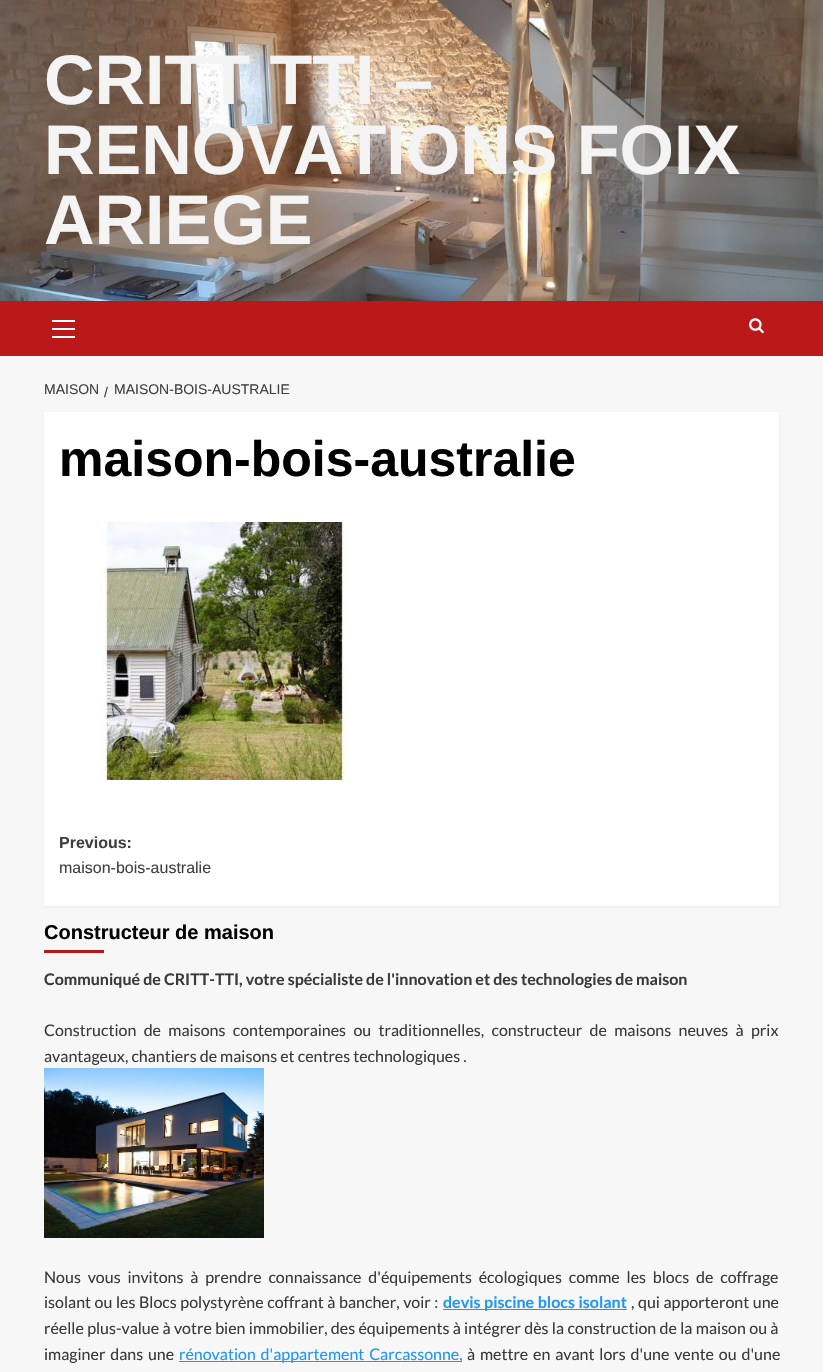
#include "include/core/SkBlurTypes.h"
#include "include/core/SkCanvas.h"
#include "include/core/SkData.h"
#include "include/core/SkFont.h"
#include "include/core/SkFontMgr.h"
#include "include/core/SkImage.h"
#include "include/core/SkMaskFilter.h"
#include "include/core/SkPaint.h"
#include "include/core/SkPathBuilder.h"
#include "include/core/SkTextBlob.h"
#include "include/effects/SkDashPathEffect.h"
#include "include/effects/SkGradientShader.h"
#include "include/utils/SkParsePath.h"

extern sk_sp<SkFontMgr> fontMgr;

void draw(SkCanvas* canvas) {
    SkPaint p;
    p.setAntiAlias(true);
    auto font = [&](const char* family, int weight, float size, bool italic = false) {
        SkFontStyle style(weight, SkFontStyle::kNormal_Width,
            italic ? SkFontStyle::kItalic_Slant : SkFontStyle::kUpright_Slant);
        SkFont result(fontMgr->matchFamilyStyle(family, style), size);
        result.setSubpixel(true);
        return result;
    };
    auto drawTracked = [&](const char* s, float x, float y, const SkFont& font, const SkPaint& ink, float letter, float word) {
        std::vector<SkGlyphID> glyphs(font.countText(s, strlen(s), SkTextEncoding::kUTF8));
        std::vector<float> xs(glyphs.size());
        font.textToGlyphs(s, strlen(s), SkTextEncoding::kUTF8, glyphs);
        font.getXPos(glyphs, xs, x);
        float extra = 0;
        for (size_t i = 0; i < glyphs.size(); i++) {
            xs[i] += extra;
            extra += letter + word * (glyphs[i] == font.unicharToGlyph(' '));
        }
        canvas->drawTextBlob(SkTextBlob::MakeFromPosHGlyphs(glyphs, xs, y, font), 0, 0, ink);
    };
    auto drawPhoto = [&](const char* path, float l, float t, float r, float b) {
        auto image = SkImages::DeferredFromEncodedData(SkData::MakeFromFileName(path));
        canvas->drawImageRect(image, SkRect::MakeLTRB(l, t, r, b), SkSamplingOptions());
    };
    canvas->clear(0xFFF7F7F7);
    drawPhoto("media/1.png", 0, 0, 823, 301);
    auto font1 = font("Liberation Sans", 700, 70);
    p.setColor(0xFFF4F4F4);
    {
        const struct { const char* s; float x, y; } items[] = {
            {"CRITT TTI –", 44, 104},
            {"RENOVATIONS FOIX", 44, 174},
            {"ARIEGE", 44, 244},
        };
        for (auto [s, x, y] : items) {
            canvas->drawString(s, x, y, font1, p);
        }
    }
    {
        const struct { float l, t, r, b; SkColor color; } items[] = {
            {0, 301, 823, 356, 0xFFBB1919},
            {52, 328, 75, 330, 0xFFFFFFFF},
            {52, 320, 75, 322, 0xFFFFFFFF},
            {52, 336, 75, 338, 0xFFFFFFFF},
        };
        for (auto [l, t, r, b, color] : items) {
            p.setColor(color);
            canvas->drawRect(SkRect::MakeLTRB(l, t, r, b), p);
        }
    }
    drawPhoto("media/2.png", 749, 318, 764, 334);
    auto font2 = font("Liberation Sans", 400, 14);
    p.setColor(0xFF404040);
    {
        const struct { const char* s; float x, y; } items[] = {
            {"MAISON", 44, 394},
            {"/", 104, 397},
            {"MAISON-BOIS-AUSTRALIE", 114, 394},
        };
        for (auto [s, x, y] : items) {
            canvas->drawString(s, x, y, font2, p);
        }
    }
    p.setColor(0x0D000000);
    p.setMaskFilter(SkMaskFilter::MakeBlur(kNormal_SkBlurStyle, 1));
    canvas->drawRect(SkRect::MakeLTRB(44, 413, 779, 907), p);
    p.setMaskFilter(nullptr);
    p.setColor(0xFFFFFFFF);
    canvas->drawRect(SkRect::MakeLTRB(44, 412, 779, 906), p);
    auto font3 = font("Liberation Sans", 700, 50);
    p.setColor(0xFF000000);
    canvas->drawString("maison-bois-australie", 59, 476, font3, p);
    drawPhoto("media/3.png", 100, 522, 347, 780);
    auto font4 = font("Liberation Sans", 700, 16);
    p.setColor(0xFF404040);
    canvas->drawString("Previous:", 59, 848, font4, p);
    auto font5 = font("Liberation Sans", 400, 16);
    canvas->drawString("maison-bois-australie", 59, 873, font5, p);
    auto font6 = font("Liberation Sans", 700, 20);
    p.setColor(0xFF000000);
    canvas->drawString("Constructeur de maison", 44, 939, font6, p);
    p.setColor(0xFFBB1919);
    canvas->drawRect(SkRect::MakeLTRB(44, 950, 104, 953), p);
    auto font7 = font("Lato", 700, 16);
    p.setColor(0xFF3A3A3A);
    canvas->drawString("Communiqué de CRITT-TTI, votre spécialiste de l'innovation et des technologies de maison", 44, 985, font7, p);
    auto font8 = font("Lato", 400, 16);
    drawTracked("Construction de maisons contemporaines ou traditionnelles, constructeur de maisons neuves à prix", 44, 1036, font8, p, 0, 4.25f);
    canvas->drawString("avantageux, chantiers de maisons et centres technologiques .", 44, 1062, font8, p);
    drawPhoto("media/4.png", 44, 1068, 264, 1238);
    drawTracked("Nous vous invitons à prendre connaissance d'équipements écologiques comme les blocs de coffrage", 44, 1283, font8, p, 0, 3.75f);
    drawTracked("isolant ou les Blocs polystyrène coffrant à bancher, voir :", 44, 1308, font8, p, 0, 0.5f);
    p.setColor(0xFF2196F3);
    canvas->drawRect(SkRect::MakeLTRB(443, 1309, 627, 1310), p);
    drawTracked("devis piscine blocs isolant", 443, 1308, font7, p, 0, 0.5f);
    p.setColor(0xFF3A3A3A);
    drawTracked(", qui apporteront une", 631, 1308, font8, p, 0, 0.5f);
    drawTracked("réelle plus-value à votre bien immobilier, des équipements à intégrer dès la construction de la maison ou à", 44, 1334, font8, p, 0, 0.25f);
    drawTracked("imaginer dans une", 44, 1360, font8, p, 0, 1.75f);
    p.setColor(0xFF2196F3);
    canvas->drawRect(SkRect::MakeLTRB(179, 1361, 462, 1362), p);
    drawTracked("rénovation d'appartement Carcassonne,", 179, 1360, font8, p, 0, 1.75f);
    p.setColor(0xFF3A3A3A);
    drawTracked("à mettre en avant lors d'une vente ou d'une", 467, 1360, font8, p, 0, 1.75f);
}
